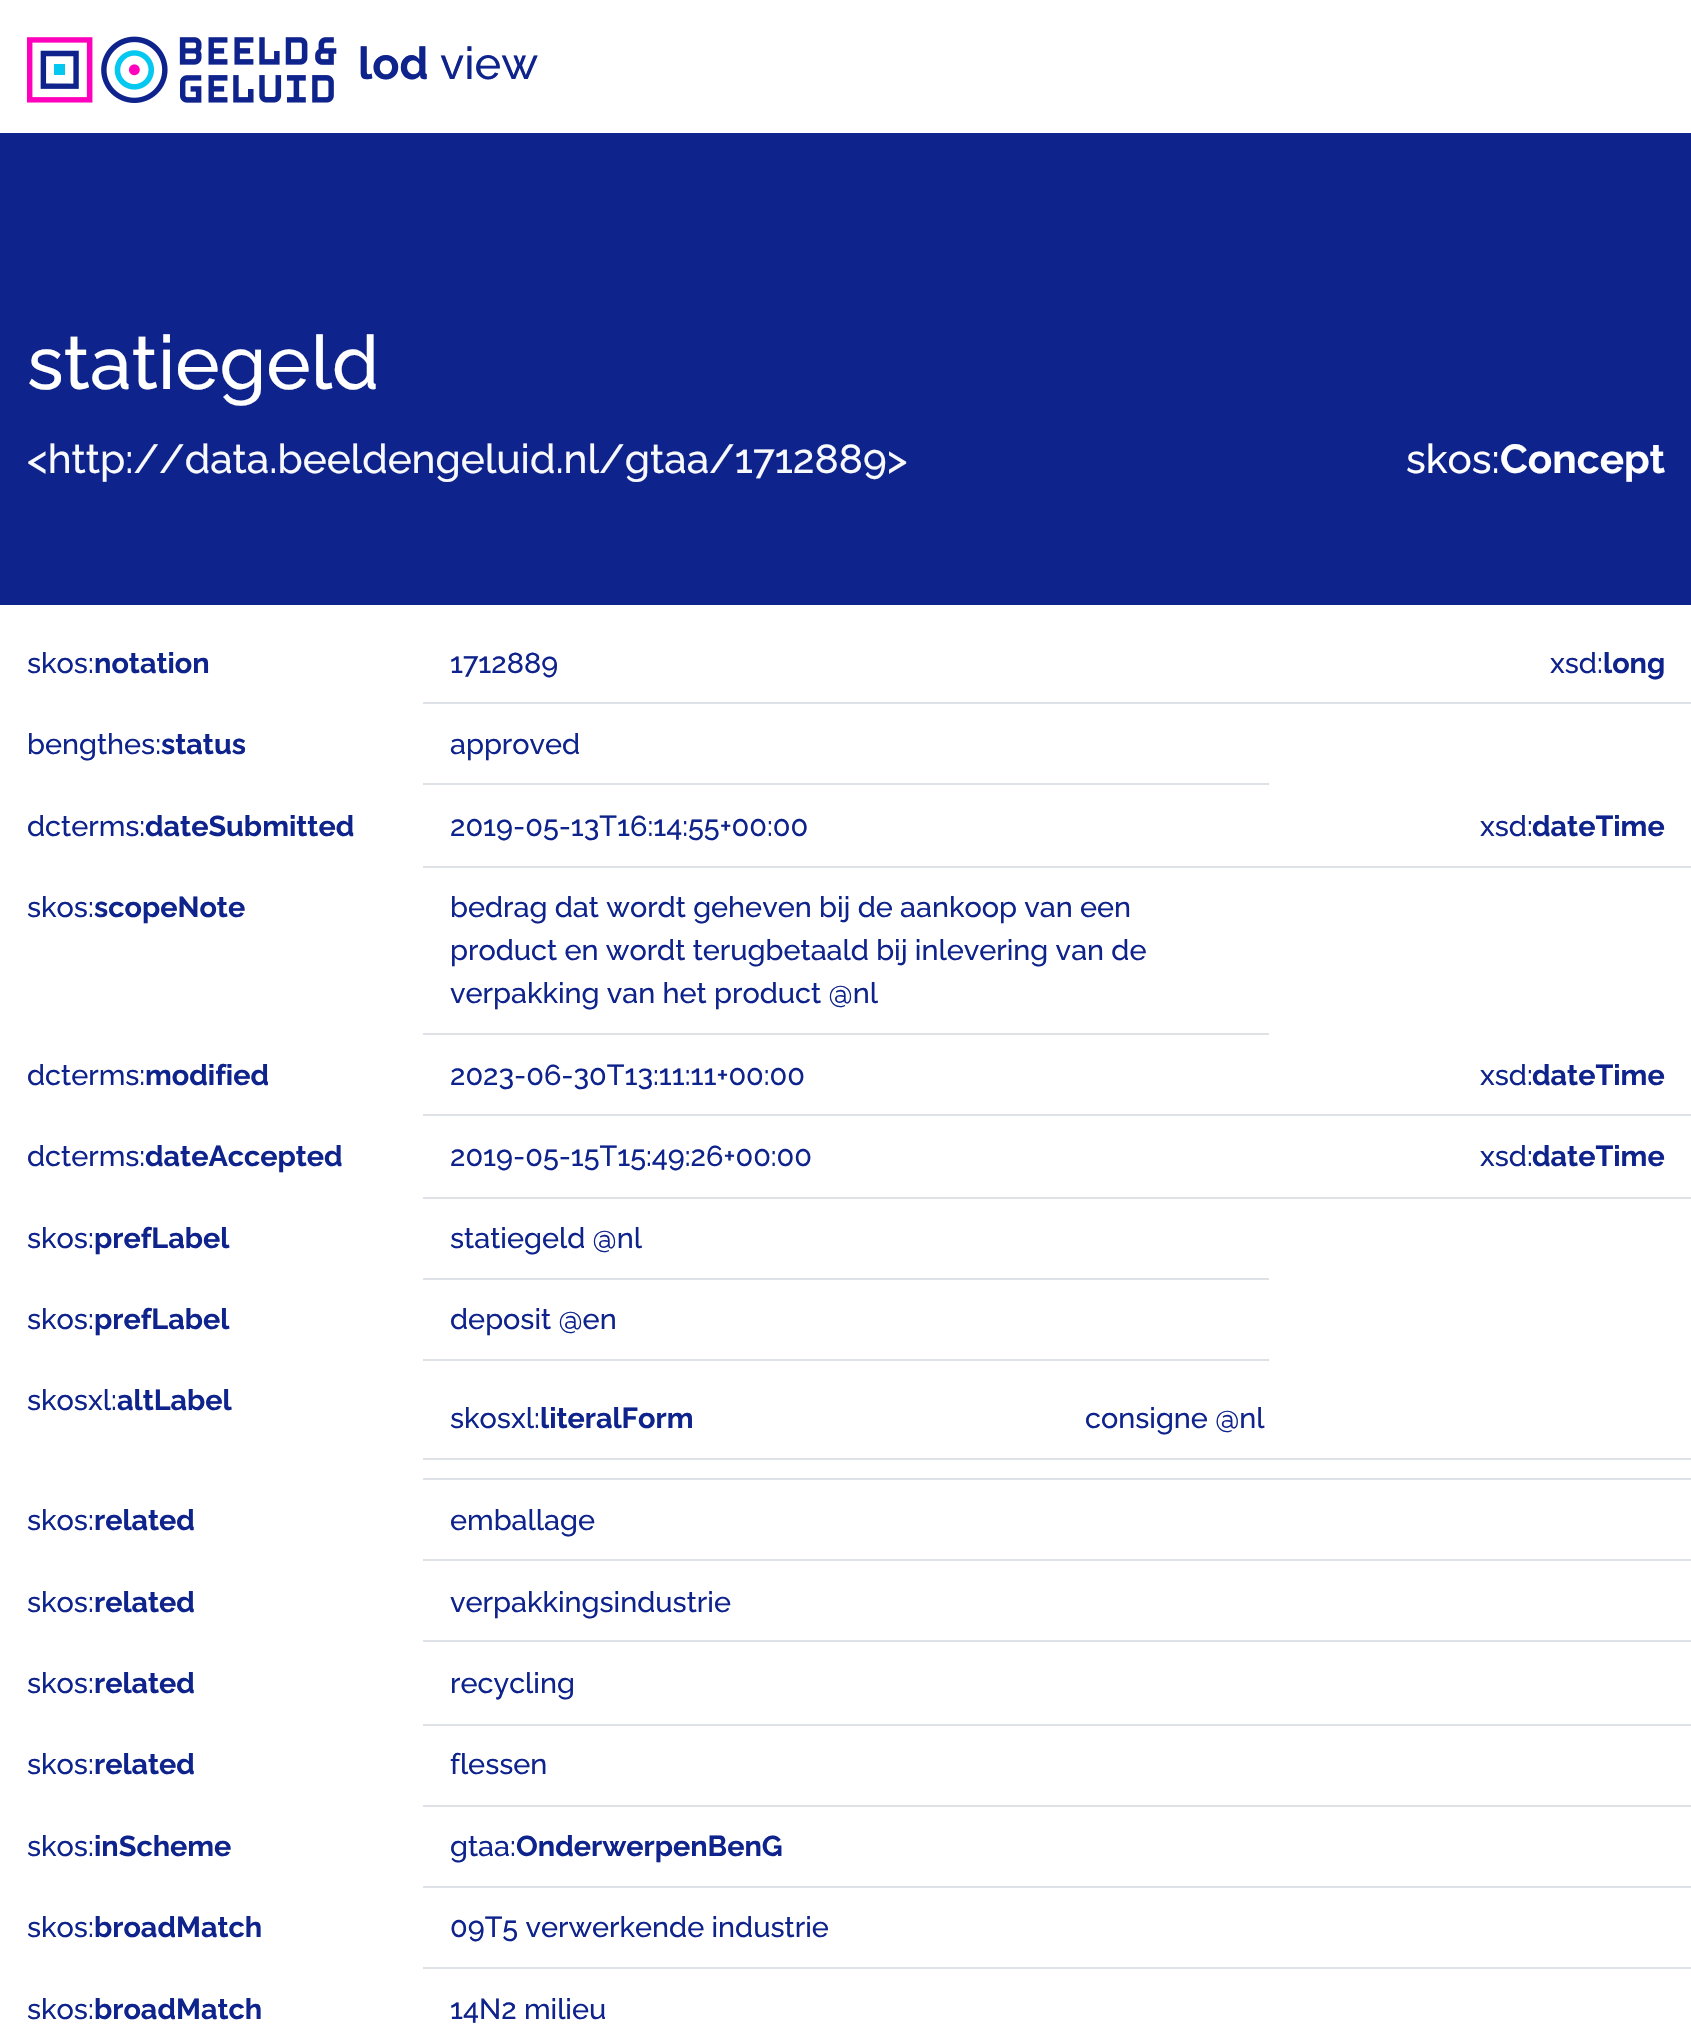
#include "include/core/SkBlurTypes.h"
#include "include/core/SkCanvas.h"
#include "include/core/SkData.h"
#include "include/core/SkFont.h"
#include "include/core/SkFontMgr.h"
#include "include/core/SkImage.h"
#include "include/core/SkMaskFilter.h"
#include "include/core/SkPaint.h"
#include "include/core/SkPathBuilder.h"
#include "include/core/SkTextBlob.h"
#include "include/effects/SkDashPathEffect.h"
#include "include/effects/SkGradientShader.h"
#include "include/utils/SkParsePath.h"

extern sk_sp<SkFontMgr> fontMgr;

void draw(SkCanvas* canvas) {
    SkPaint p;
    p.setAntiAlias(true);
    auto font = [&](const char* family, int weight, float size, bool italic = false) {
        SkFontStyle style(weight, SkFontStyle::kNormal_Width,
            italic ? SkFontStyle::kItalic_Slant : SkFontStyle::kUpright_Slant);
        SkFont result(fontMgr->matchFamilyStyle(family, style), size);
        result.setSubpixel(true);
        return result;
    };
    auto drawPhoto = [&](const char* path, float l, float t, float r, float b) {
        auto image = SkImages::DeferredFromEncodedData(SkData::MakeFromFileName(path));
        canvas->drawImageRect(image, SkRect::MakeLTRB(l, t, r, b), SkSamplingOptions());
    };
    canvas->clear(0xFFFFFFFF);
    drawPhoto("media/1.png", 27, 36, 337, 103);
    auto font1 = font("Raleway", 700, 45);
    p.setColor(0xFF0F238C);
    canvas->drawString("lod", 358, 79, font1, p);
    auto font2 = font("Raleway", 500, 45);
    canvas->drawString("view", 440, 79, font2, p);
    canvas->drawRect(SkRect::MakeLTRB(0, 133, 1691, 605), p);
    auto font3 = font("Raleway", 500, 75);
    p.setColor(0xFFFFFFFF);
    canvas->drawString("statiegeld", 27, 389, font3, p);
    auto font4 = font("Raleway", 500, 40.5f);
    p.setColor(0xFFF8F9FA);
    canvas->drawString("<http://data.beeldengeluid.nl/gtaa/1712889>", 27, 473, font4, p);
    p.setColor(0xFFFFFFFF);
    canvas->drawString("skos:", 1406, 473, font4, p);
    auto font5 = font("Raleway", 700, 40.5f);
    canvas->drawString("Concept", 1500, 473, font5, p);
    auto font6 = font("Raleway", 500, 28.8f);
    p.setColor(0xFF0F238C);
    canvas->drawString("skos:", 27, 673, font6, p);
    auto font7 = font("Raleway", 700, 28.8f);
    canvas->drawString("notation", 94, 673, font7, p);
    p.setColor(0xFFDEE2E6);
    canvas->drawRect(SkRect::MakeLTRB(423, 702, 1691, 704), p);
    p.setColor(0xFF0F238C);
    canvas->drawString("1712889", 450, 673, font6, p);
    canvas->drawString("xsd:", 1550, 673, font6, p);
    canvas->drawString("long", 1603, 673, font7, p);
    canvas->drawString("bengthes:", 27, 754, font6, p);
    canvas->drawString("status", 161, 754, font7, p);
    p.setColor(0xFFDEE2E6);
    canvas->drawRect(SkRect::MakeLTRB(423, 783, 1269, 785), p);
    p.setColor(0xFF0F238C);
    canvas->drawString("approved", 450, 754, font6, p);
    canvas->drawString("dcterms:", 27, 836, font6, p);
    canvas->drawString("dateSubmitted", 145, 836, font7, p);
    p.setColor(0xFFDEE2E6);
    canvas->drawRect(SkRect::MakeLTRB(423, 866, 1691, 868), p);
    p.setColor(0xFF0F238C);
    canvas->drawString("2019-05-13T16:14:55+00:00", 450, 836, font6, p);
    canvas->drawString("xsd:", 1480, 836, font6, p);
    canvas->drawString("dateTime", 1532, 836, font7, p);
    canvas->drawString("skos:", 27, 917, font6, p);
    canvas->drawString("scopeNote", 94, 917, font7, p);
    p.setColor(0xFFDEE2E6);
    canvas->drawRect(SkRect::MakeLTRB(423, 1033, 1269, 1035), p);
    p.setColor(0xFF0F238C);
    {
        const struct { const char* s; float x, y; } items[] = {
            {"bedrag dat wordt geheven bij de aankoop van een", 450, 917},
            {"product en wordt terugbetaald bij inlevering van de", 450, 960},
            {"verpakking van het product @nl", 450, 1003},
            {"dcterms:", 27, 1085},
        };
        for (auto [s, x, y] : items) {
            canvas->drawString(s, x, y, font6, p);
        }
    }
    canvas->drawString("modified", 145, 1085, font7, p);
    p.setColor(0xFFDEE2E6);
    canvas->drawRect(SkRect::MakeLTRB(423, 1114, 1691, 1116), p);
    p.setColor(0xFF0F238C);
    canvas->drawString("2023-06-30T13:11:11+00:00", 450, 1085, font6, p);
    canvas->drawString("xsd:", 1480, 1085, font6, p);
    canvas->drawString("dateTime", 1532, 1085, font7, p);
    canvas->drawString("dcterms:", 27, 1166, font6, p);
    canvas->drawString("dateAccepted", 145, 1166, font7, p);
    p.setColor(0xFFDEE2E6);
    canvas->drawRect(SkRect::MakeLTRB(423, 1197, 1691, 1199), p);
    p.setColor(0xFF0F238C);
    canvas->drawString("2019-05-15T15:49:26+00:00", 450, 1166, font6, p);
    canvas->drawString("xsd:", 1480, 1166, font6, p);
    canvas->drawString("dateTime", 1532, 1166, font7, p);
    canvas->drawString("skos:", 27, 1248, font6, p);
    canvas->drawString("prefLabel", 94, 1248, font7, p);
    p.setColor(0xFFDEE2E6);
    canvas->drawRect(SkRect::MakeLTRB(423, 1278, 1269, 1280), p);
    p.setColor(0xFF0F238C);
    canvas->drawString("statiegeld @nl", 450, 1248, font6, p);
    canvas->drawString("skos:", 27, 1329, font6, p);
    canvas->drawString("prefLabel", 94, 1329, font7, p);
    p.setColor(0xFFDEE2E6);
    canvas->drawRect(SkRect::MakeLTRB(423, 1359, 1269, 1361), p);
    p.setColor(0xFF0F238C);
    canvas->drawString("deposit @en", 450, 1329, font6, p);
    canvas->drawString("skosxl:", 27, 1410, font6, p);
    canvas->drawString("altLabel", 117, 1410, font7, p);
    p.setColor(0xFFDEE2E6);
    canvas->drawRect(SkRect::MakeLTRB(423, 1478, 1691, 1480), p);
    canvas->drawRect(SkRect::MakeLTRB(423, 1458, 1691, 1460), p);
    p.setColor(0xFF0F238C);
    canvas->drawString("skosxl:", 450, 1428, font6, p);
    canvas->drawString("literalForm", 540, 1428, font7, p);
    canvas->drawString("consigne @nl", 1085, 1428, font6, p);
    canvas->drawString("skos:", 27, 1530, font6, p);
    canvas->drawString("related", 94, 1530, font7, p);
    p.setColor(0xFFDEE2E6);
    canvas->drawRect(SkRect::MakeLTRB(423, 1559, 1691, 1561), p);
    p.setColor(0xFF0F238C);
    canvas->drawString("emballage", 450, 1530, font6, p);
    canvas->drawString("skos:", 27, 1612, font6, p);
    canvas->drawString("related", 94, 1612, font7, p);
    p.setColor(0xFFDEE2E6);
    canvas->drawRect(SkRect::MakeLTRB(423, 1640, 1691, 1642), p);
    p.setColor(0xFF0F238C);
    canvas->drawString("verpakkingsindustrie", 450, 1612, font6, p);
    canvas->drawString("skos:", 27, 1693, font6, p);
    canvas->drawString("related", 94, 1693, font7, p);
    p.setColor(0xFFDEE2E6);
    canvas->drawRect(SkRect::MakeLTRB(423, 1724, 1691, 1726), p);
    p.setColor(0xFF0F238C);
    canvas->drawString("recycling", 450, 1693, font6, p);
    canvas->drawString("skos:", 27, 1774, font6, p);
    canvas->drawString("related", 94, 1774, font7, p);
    p.setColor(0xFFDEE2E6);
    canvas->drawRect(SkRect::MakeLTRB(423, 1805, 1691, 1807), p);
    p.setColor(0xFF0F238C);
    canvas->drawString("flessen", 450, 1774, font6, p);
    canvas->drawString("skos:", 27, 1856, font6, p);
    canvas->drawString("inScheme", 94, 1856, font7, p);
    p.setColor(0xFFDEE2E6);
    canvas->drawRect(SkRect::MakeLTRB(423, 1886, 1691, 1888), p);
    p.setColor(0xFF0F238C);
    canvas->drawString("gtaa:", 450, 1856, font6, p);
    canvas->drawString("OnderwerpenBenG", 516, 1856, font7, p);
    canvas->drawString("skos:", 27, 1937, font6, p);
    canvas->drawString("broadMatch", 94, 1937, font7, p);
    p.setColor(0xFFDEE2E6);
    canvas->drawRect(SkRect::MakeLTRB(423, 1967, 1691, 1969), p);
    p.setColor(0xFF0F238C);
    canvas->drawString("09T5 verwerkende industrie", 450, 1937, font6, p);
    canvas->drawString("skos:", 27, 2019, font6, p);
    canvas->drawString("broadMatch", 94, 2019, font7, p);
    canvas->drawString("14N2 milieu", 450, 2019, font6, p);
}
